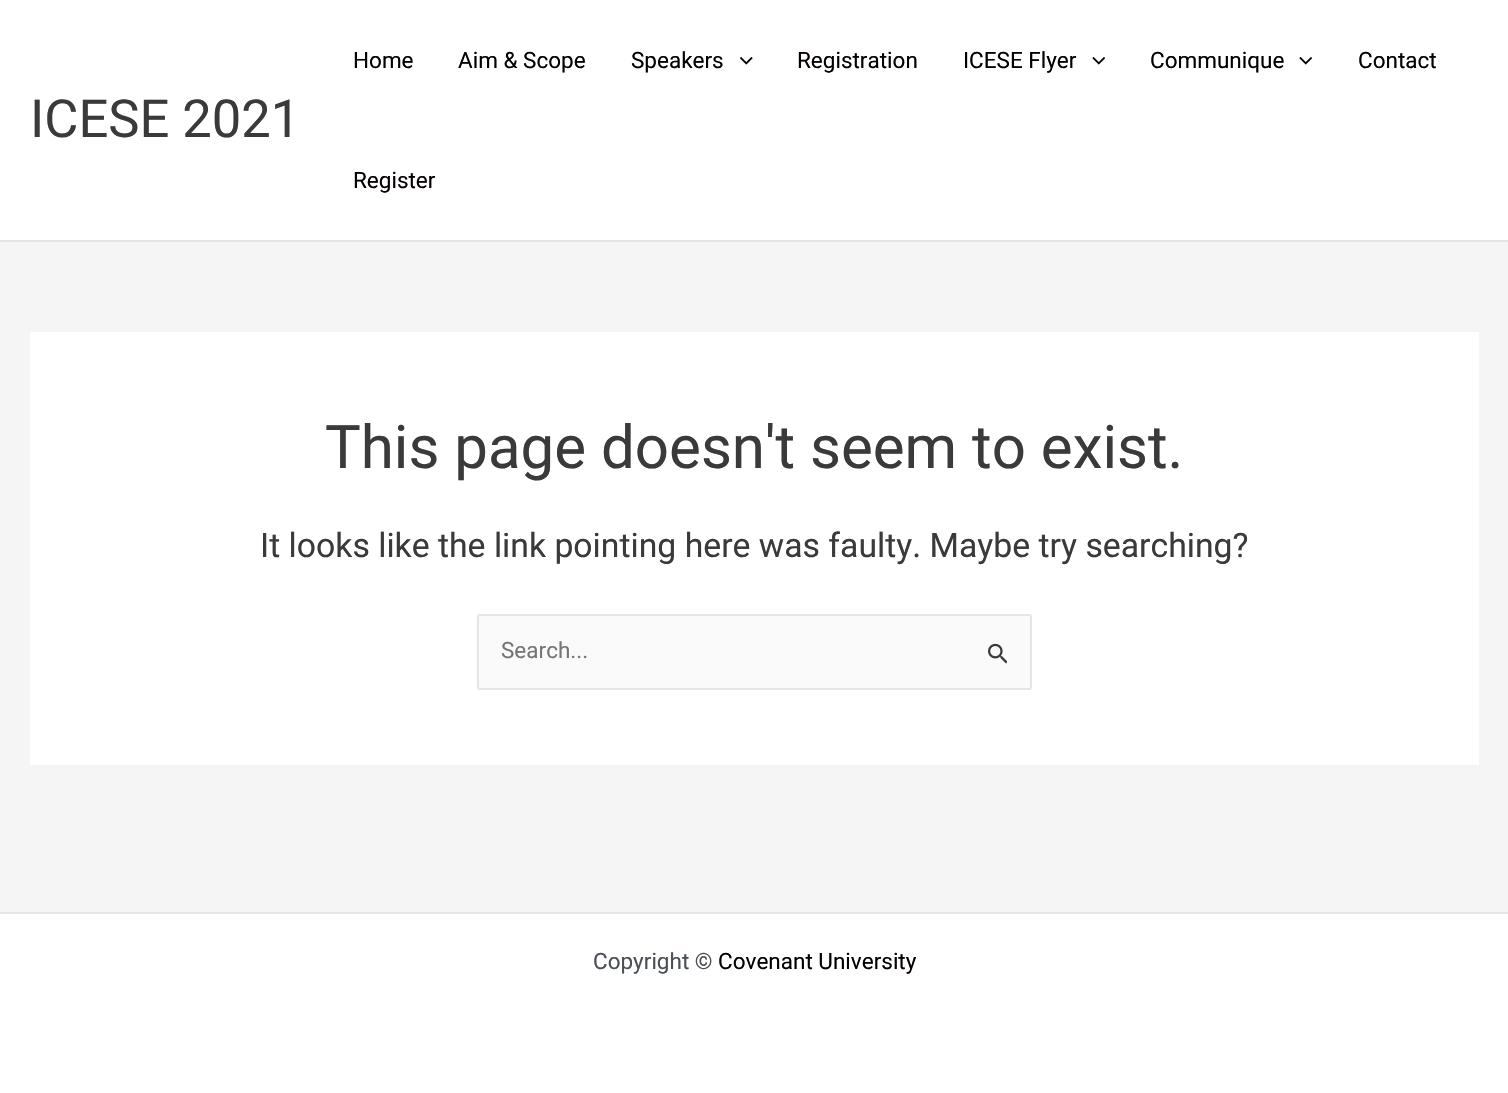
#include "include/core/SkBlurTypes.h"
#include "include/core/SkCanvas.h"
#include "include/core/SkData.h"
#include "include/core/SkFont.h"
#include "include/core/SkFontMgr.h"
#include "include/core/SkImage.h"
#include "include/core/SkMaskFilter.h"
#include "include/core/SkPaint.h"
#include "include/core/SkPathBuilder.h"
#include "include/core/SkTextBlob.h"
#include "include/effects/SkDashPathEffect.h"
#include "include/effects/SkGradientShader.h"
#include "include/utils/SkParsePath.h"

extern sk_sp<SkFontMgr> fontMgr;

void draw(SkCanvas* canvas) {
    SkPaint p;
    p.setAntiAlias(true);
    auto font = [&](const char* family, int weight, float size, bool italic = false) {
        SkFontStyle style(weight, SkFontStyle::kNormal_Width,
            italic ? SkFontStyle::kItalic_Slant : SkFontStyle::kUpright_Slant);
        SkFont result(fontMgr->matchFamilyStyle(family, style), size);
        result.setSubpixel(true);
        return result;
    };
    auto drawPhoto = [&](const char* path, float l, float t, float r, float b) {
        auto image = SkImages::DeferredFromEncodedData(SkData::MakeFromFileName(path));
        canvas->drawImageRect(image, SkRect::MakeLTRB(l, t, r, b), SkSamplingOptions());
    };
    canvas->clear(0xFFF5F5F5);
    p.setColor(0xFFFFFFFF);
    canvas->drawRect(SkRect::MakeLTRB(0, 0, 1508, 240), p);
    p.setColor(0xFFE5E5E5);
    canvas->drawRect(SkRect::MakeLTRB(0, 240, 1508, 242), p);
    auto font1 = font("Roboto", 400, 52.5f);
    p.setColor(0xFF3A3A3A);
    canvas->drawString("ICESE 2021", 30, 137, font1, p);
    auto font2 = font("Roboto", 400, 22.5f);
    p.setColor(0xFF050000);
    {
        const struct { const char* s; float x, y; } items[] = {
            {"Home", 353, 68},
            {"Aim & Scope", 458, 68},
            {"Speakers", 631, 68},
        };
        for (auto [s, x, y] : items) {
            canvas->drawString(s, x, y, font2, p);
        }
    }
    drawPhoto("media/1.png", 740, 57, 753, 65);
    canvas->drawString("Registration", 797, 68, font2, p);
    canvas->drawString("ICESE Flyer", 963, 68, font2, p);
    drawPhoto("media/2.png", 1092, 57, 1106, 65);
    canvas->drawString("Communique", 1150, 68, font2, p);
    drawPhoto("media/2.png", 1299, 57, 1313, 65);
    canvas->drawString("Contact", 1358, 68, font2, p);
    canvas->drawString("Register", 353, 188, font2, p);
    p.setColor(0xFFFFFFFF);
    canvas->drawRect(SkRect::MakeLTRB(30, 332, 1479, 765), p);
    auto font3 = font("Roboto", 400, 60);
    p.setColor(0xFF3A3A3A);
    canvas->drawString("This page doesn't seem to exist.", 325, 468, font3, p);
    auto font4 = font("Roboto", 400, 33.75f);
    canvas->drawString("It looks like the link pointing here was faulty. Maybe try searching?", 260, 557, font4, p);
    p.setColor(0xFFFAFAFA);
    canvas->drawRoundRect(SkRect::MakeLTRB(478, 615, 1031, 689), 2, 2, p);
    p.setStyle(SkPaint::kStroke_Style);
    p.setStrokeWidth(2);
    p.setColor(0xFFE5E5E5);
    canvas->drawRoundRect(SkRect::MakeLTRB(478, 615, 1031, 689), 2, 2, p);
    p.setStyle(SkPaint::kFill_Style);
    p.setColor(0xFF757575);
    canvas->drawString("Search...", 501, 658, font2, p);
    drawPhoto("media/3.png", 988, 643, 1007, 664);
    p.setColor(0xFFFFFFFF);
    canvas->drawRect(SkRect::MakeLTRB(0, 914, 1508, 1093), p);
    p.setColor(0xFFE5E5E5);
    canvas->drawRect(SkRect::MakeLTRB(0, 912, 1508, 914), p);
    p.setColor(0xFF4B4F58);
    canvas->drawString("Copyright ©", 593, 969, font2, p);
    p.setColor(0xFF050000);
    canvas->drawString("Covenant University", 718, 969, font2, p);
}
